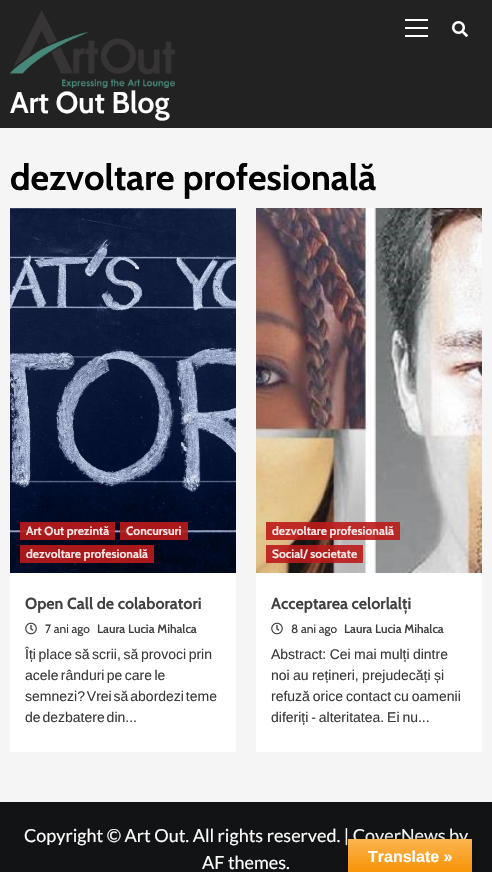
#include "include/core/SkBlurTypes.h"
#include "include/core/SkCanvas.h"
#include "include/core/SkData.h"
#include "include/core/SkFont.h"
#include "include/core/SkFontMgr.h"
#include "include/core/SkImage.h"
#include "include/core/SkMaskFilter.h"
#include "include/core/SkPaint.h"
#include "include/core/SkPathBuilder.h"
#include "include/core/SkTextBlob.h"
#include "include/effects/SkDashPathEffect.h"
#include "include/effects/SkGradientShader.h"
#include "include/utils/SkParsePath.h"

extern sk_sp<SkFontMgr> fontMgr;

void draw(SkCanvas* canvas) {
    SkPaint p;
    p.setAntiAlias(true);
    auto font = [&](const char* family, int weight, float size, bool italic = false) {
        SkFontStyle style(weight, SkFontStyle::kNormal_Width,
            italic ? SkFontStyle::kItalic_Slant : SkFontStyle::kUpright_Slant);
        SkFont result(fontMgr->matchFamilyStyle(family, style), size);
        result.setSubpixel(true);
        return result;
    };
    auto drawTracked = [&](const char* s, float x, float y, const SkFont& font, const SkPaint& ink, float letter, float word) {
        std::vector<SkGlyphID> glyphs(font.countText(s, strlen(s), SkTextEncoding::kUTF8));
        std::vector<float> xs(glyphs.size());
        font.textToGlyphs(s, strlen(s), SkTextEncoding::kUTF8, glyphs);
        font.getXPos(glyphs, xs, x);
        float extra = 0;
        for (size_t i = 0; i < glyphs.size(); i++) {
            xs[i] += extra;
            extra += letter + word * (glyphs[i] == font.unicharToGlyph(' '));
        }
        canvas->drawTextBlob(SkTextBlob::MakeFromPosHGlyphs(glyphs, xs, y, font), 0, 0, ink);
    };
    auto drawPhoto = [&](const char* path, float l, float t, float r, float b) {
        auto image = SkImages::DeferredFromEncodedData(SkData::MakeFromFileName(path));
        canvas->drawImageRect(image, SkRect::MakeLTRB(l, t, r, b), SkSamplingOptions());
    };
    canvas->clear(0xFFF5F5F5);
    {
        const struct { float l, t, r, b; SkColor color; } items[] = {
            {0, 0, 492, 128, 0xFF222222},
            {405, 27, 428, 29, 0xFFFFFFFF},
            {405, 19, 428, 21, 0xFFFFFFFF},
            {405, 35, 428, 37, 0xFFFFFFFF},
        };
        for (auto [l, t, r, b, color] : items) {
            p.setColor(color);
            canvas->drawRect(SkRect::MakeLTRB(l, t, r, b), p);
        }
    }
    drawPhoto("media/1.png", 452, 21, 468, 37);
    drawPhoto("media/2.png", 10, 10, 175, 88);
    auto font1 = font("Cabin", 600, 30);
    canvas->drawString("Art Out Blog", 10, 113, font1, p);
    auto font2 = font("Cabin", 700, 36);
    p.setColor(0xFF000000);
    canvas->drawString("dezvoltare profesională", 10, 190, font2, p);
    p.setColor(0xFFFFFFFF);
    canvas->drawRect(SkRect::MakeLTRB(10, 573, 236, 752), p);
    drawPhoto("media/3.png", 10, 208, 236, 573);
    p.setColor(0xE6BB1919);
    canvas->drawRect(SkRect::MakeLTRB(20, 522, 115, 540), p);
    auto font3 = font("Cabin", 700, 12);
    p.setColor(0xFFF7E8E8);
    canvas->drawString("Art Out prezintă", 26, 535, font3, p);
    p.setColor(0xE6BB1919);
    canvas->drawRect(SkRect::MakeLTRB(120, 522, 188, 540), p);
    p.setColor(0xFFF7E8E8);
    canvas->drawString("Concursuri", 126, 535, font3, p);
    p.setColor(0xE6BB1919);
    canvas->drawRect(SkRect::MakeLTRB(20, 545, 154, 563), p);
    p.setColor(0xFFF7E8E8);
    canvas->drawString("dezvoltare profesională", 26, 558, font3, p);
    auto font4 = font("Cabin", 700, 16);
    p.setColor(0xFF404040);
    canvas->drawString("Open Call de colaboratori", 25, 609, font4, p);
    drawPhoto("media/4.png", 25, 622, 37, 635);
    auto font5 = font("Cabin", 400, 12);
    p.setColor(0xFF3A3A3A);
    canvas->drawString("7 ani ago", 45, 633, font5, p);
    auto font6 = font("Cabin", 600, 12);
    p.setColor(0xFF404040);
    canvas->drawString("Laura Lucia Mihalca", 97, 633, font6, p);
    auto font7 = font("Liberation Sans", 400, 14);
    p.setColor(0xFF3A3A3A);
    drawTracked("Îți place să scrii, să provoci prin", 25, 659, font7, p, 0, -1.25f);
    drawTracked("acele rânduri pe care le", 25, 680, font7, p, 0, -1.5f);
    drawTracked("semnezi? Vrei să abordezi teme", 25, 701, font7, p, 0, -2);
    drawTracked("de dezbatere din...", 25, 722, font7, p, 0, -2);
    p.setColor(0xFFFFFFFF);
    canvas->drawRect(SkRect::MakeLTRB(256, 573, 482, 752), p);
    drawPhoto("media/5.png", 256, 208, 482, 573);
    p.setColor(0xE6BB1919);
    canvas->drawRect(SkRect::MakeLTRB(266, 522, 400, 540), p);
    p.setColor(0xFFF7E8E8);
    canvas->drawString("dezvoltare profesională", 272, 535, font3, p);
    p.setColor(0xE6BB1919);
    canvas->drawRect(SkRect::MakeLTRB(266, 545, 363, 563), p);
    p.setColor(0xFFF7E8E8);
    canvas->drawString("Social/ societate", 272, 558, font3, p);
    p.setColor(0xFF404040);
    canvas->drawString("Acceptarea celorlalți", 271, 609, font4, p);
    drawPhoto("media/4.png", 271, 622, 283, 635);
    p.setColor(0xFF3A3A3A);
    canvas->drawString("8 ani ago", 291, 633, font5, p);
    p.setColor(0xFF404040);
    canvas->drawString("Laura Lucia Mihalca", 344, 633, font6, p);
    p.setColor(0xFF3A3A3A);
    drawTracked("Abstract: Cei mai mulți dintre", 271, 659, font7, p, 0, -0.5f);
    drawTracked("noi au rețineri, prejudecăți și", 271, 680, font7, p, 0, -0.5f);
    drawTracked("refuză orice contact cu oamenii", 271, 701, font7, p, 0, -1);
    drawTracked("diferiți - alteritatea. Ei nu...", 271, 722, font7, p, 0, -1);
    p.setColor(0xFF121314);
    canvas->drawRect(SkRect::MakeLTRB(0, 802, 492, 872), p);
    auto font8 = font("Lato", 400, 18);
    p.setColor(0xFFFFFFFF);
    canvas->drawString("Copyright © Art Out. All rights reserved. | CoverNews by", 24, 842, font8, p);
    canvas->drawString("AF themes.", 202, 869, font8, p);
    p.setColor(0x4D000000);
    p.setMaskFilter(SkMaskFilter::MakeBlur(kNormal_SkBlurStyle, 4.5f));
    canvas->drawRect(SkRect::MakeLTRB(348, 839, 472, 872), p);
    p.setMaskFilter(nullptr);
    {
        const SkColor colors[] = {0xFFFBB450, 0xFFF89406};
        const float stops[] = {0, 1};
        const SkPoint ends[] = {{410, 839}, {410, 872}};
        p.setShader(SkGradientShader::MakeLinear(ends, colors, stops, 2, SkTileMode::kClamp));
        p.setAlpha(255);
    }
    canvas->drawRect(SkRect::MakeLTRB(348, 839, 472, 872), p);
    auto font9 = font("Liberation Sans", 700, 16);
    p.setShader(nullptr);
    p.setColor(0xFFFFFFFF);
    canvas->drawString("Translate »", 368, 862, font9, p);
}
